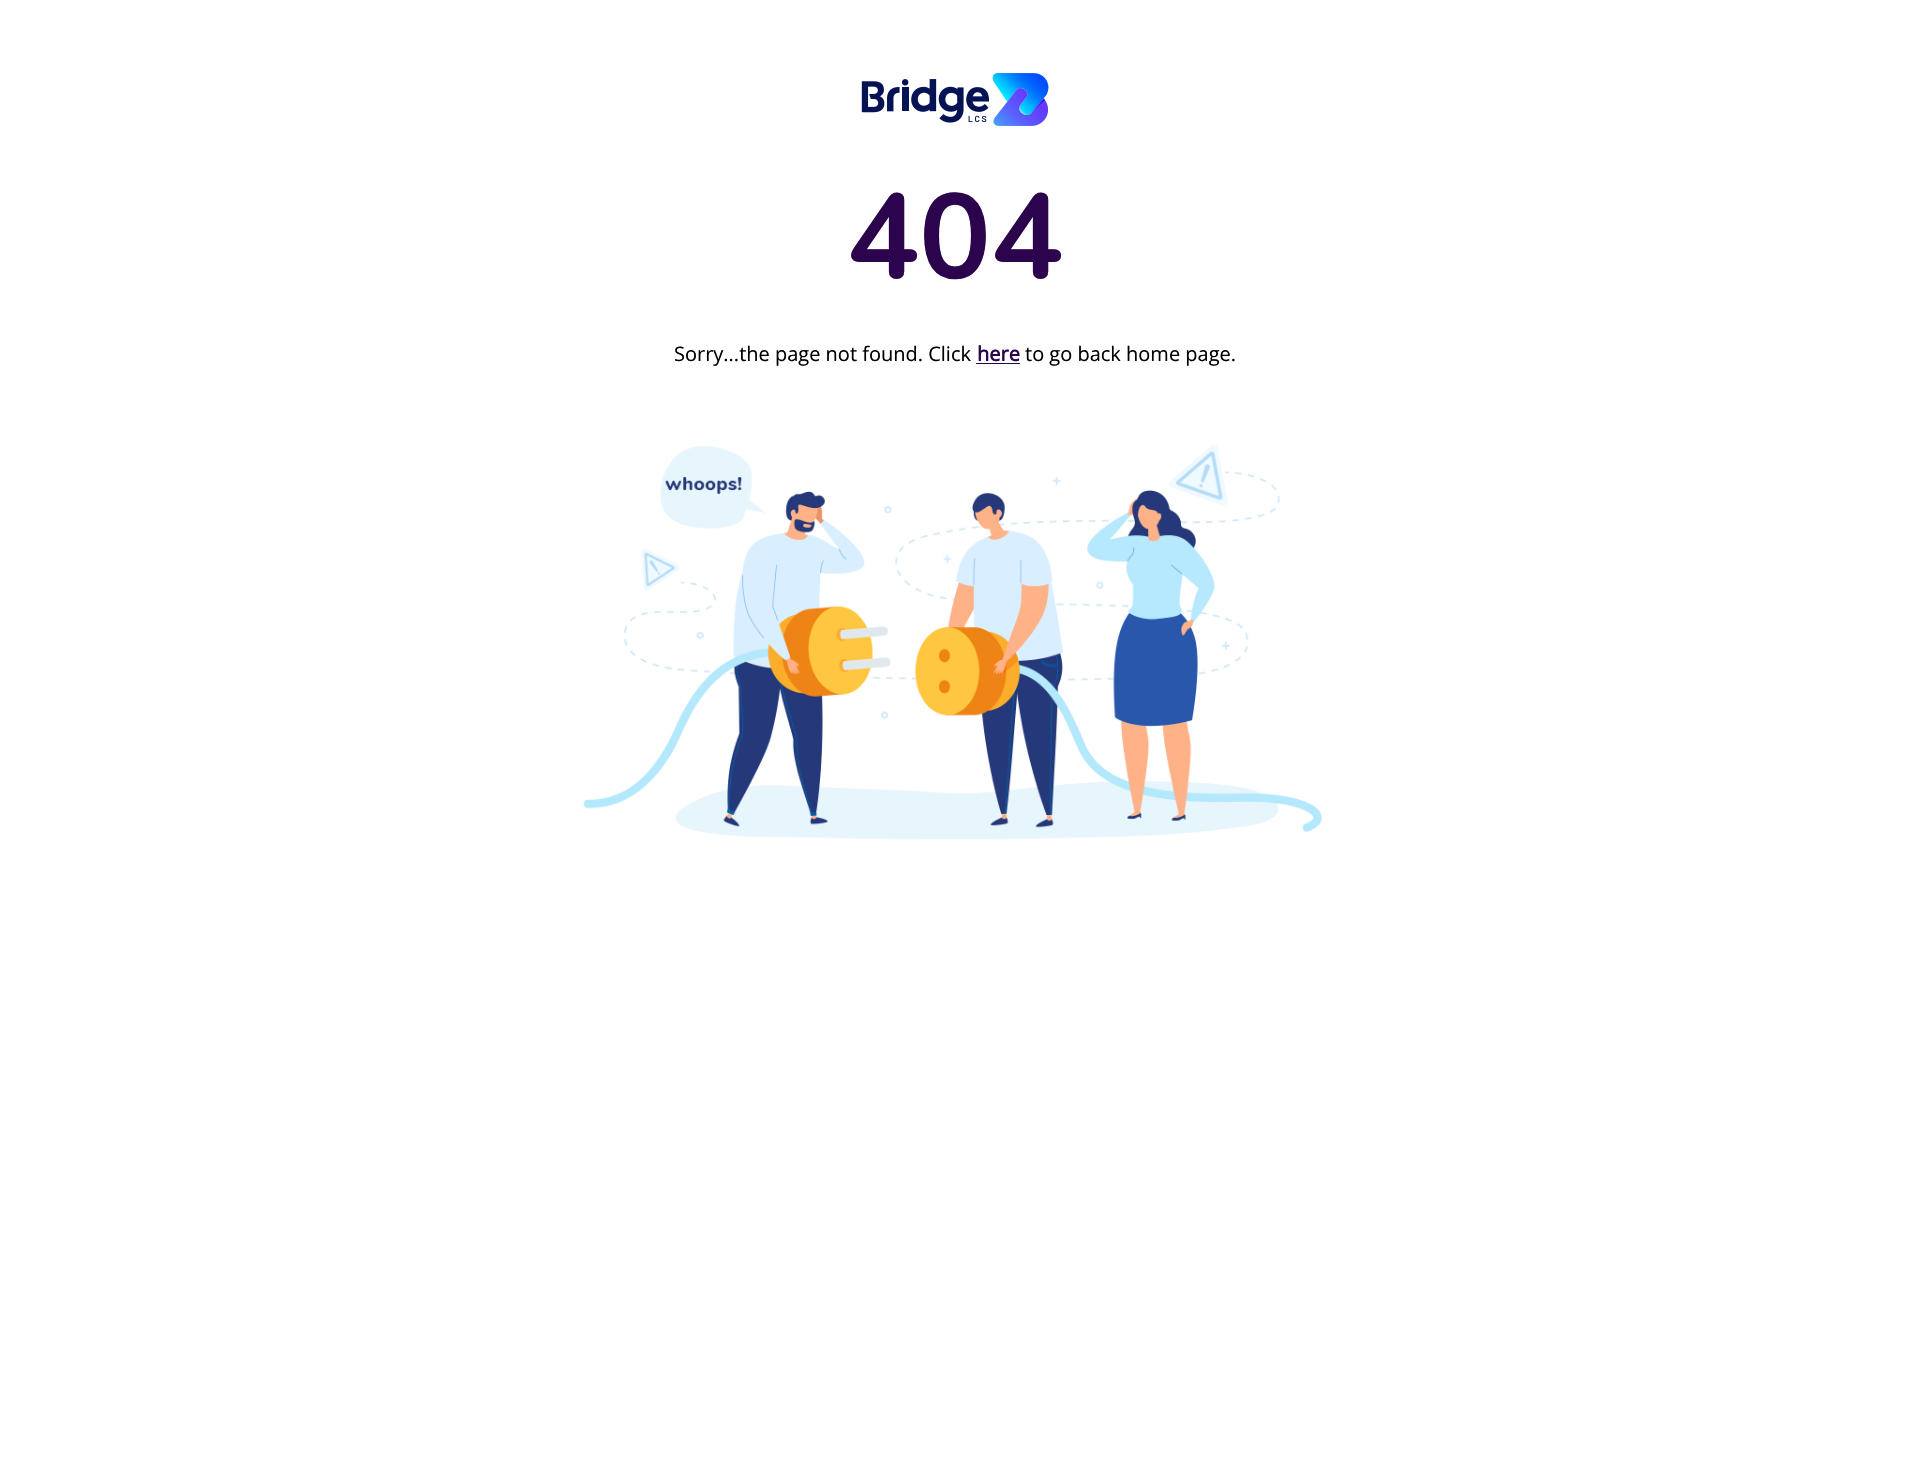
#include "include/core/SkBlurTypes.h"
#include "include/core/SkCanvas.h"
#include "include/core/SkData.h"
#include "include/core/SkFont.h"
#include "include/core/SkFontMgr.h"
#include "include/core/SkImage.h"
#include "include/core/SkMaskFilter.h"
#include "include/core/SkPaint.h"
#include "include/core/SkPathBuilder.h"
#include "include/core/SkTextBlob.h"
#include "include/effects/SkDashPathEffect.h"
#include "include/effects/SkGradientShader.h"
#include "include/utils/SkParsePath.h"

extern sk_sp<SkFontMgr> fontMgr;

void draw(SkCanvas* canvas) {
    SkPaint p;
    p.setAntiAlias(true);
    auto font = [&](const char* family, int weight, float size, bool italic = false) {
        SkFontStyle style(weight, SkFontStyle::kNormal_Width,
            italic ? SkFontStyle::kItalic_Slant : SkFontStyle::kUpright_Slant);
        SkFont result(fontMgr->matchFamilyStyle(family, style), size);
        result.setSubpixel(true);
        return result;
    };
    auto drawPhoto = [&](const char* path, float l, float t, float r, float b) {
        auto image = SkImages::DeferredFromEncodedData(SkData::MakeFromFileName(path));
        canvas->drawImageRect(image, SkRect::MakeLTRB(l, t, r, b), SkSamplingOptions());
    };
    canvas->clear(0xFFFFFFFF);
    drawPhoto("media/1.png", 861, 73, 1049, 126);
    auto font1 = font("Nunito", 700, 120);
    p.setColor(0xFF2B044D);
    canvas->drawString("404", 847, 278, font1, p);
    auto font2 = font("Open Sans", 400, 20);
    p.setColor(0xFF000000);
    canvas->drawString("Sorry...the page not found. Click", 674, 361, font2, p);
    auto font3 = font("Open Sans", 700, 20);
    p.setColor(0xFF2B044D);
    canvas->drawString("here", 977, 361, font3, p);
    canvas->drawRect(SkRect::MakeLTRB(976, 363, 1020, 364), p);
    p.setColor(0xFF000000);
    canvas->drawString("to go back home page.", 1025, 361, font2, p);
    drawPhoto("media/2.png", 583, 445, 1322, 840);
}
